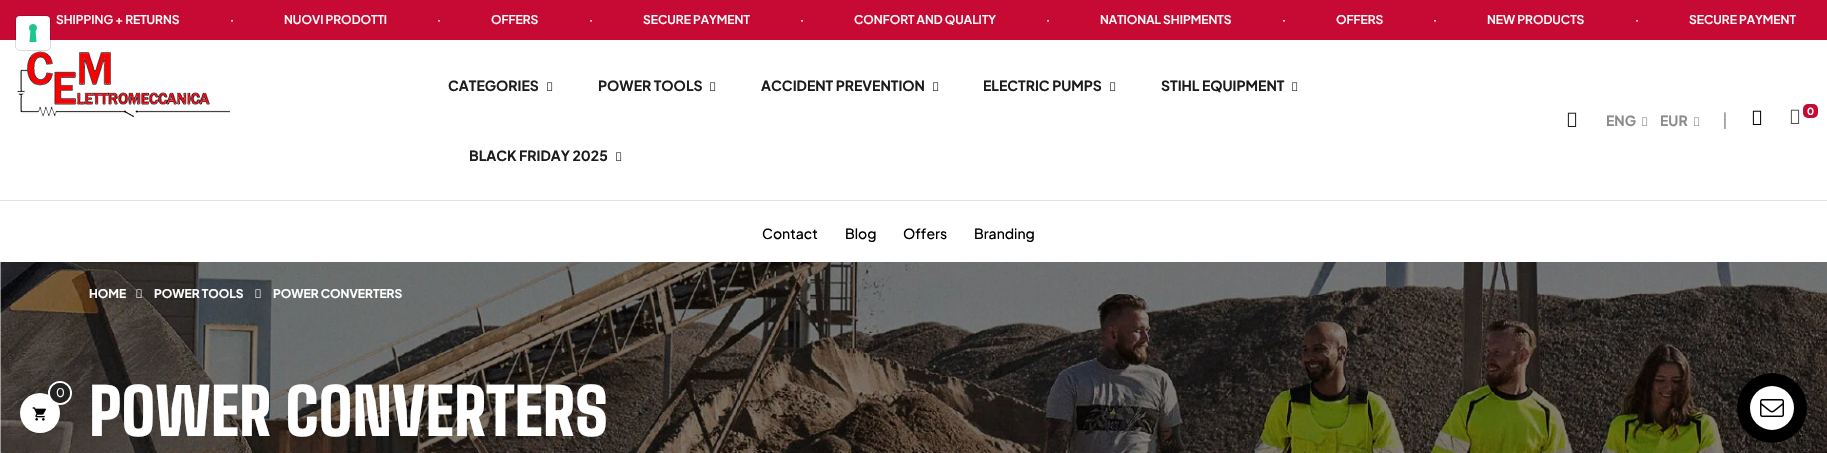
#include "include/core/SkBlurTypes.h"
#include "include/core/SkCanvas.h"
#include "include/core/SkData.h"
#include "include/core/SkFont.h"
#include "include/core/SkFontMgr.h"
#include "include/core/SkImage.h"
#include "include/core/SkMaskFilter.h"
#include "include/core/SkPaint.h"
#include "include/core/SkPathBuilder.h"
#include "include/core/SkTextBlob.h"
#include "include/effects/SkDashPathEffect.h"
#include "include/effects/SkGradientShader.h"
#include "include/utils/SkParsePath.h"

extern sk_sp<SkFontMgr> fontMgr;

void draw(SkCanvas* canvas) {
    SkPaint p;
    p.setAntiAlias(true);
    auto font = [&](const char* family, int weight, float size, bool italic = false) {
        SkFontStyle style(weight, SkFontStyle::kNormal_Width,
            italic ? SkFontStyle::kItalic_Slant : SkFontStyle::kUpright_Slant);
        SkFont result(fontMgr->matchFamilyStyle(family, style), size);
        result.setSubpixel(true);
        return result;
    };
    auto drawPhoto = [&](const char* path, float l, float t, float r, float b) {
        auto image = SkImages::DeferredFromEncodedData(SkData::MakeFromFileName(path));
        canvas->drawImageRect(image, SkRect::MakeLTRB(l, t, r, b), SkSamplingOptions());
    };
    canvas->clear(0xFFFFFFFF);
    p.setColor(0xFFC70A33);
    canvas->drawRect(SkRect::MakeLTRB(0, 0, 1827, 40), p);
    p.setStyle(SkPaint::kStroke_Style);
    p.setStrokeWidth(1);
    p.setColor(0x26000000);
    canvas->drawRoundRect(SkRect::MakeLTRB(15.5f, 15.5f, 50.5f, 50.5f), 4.5f, 4.5f, p);
    p.setStyle(SkPaint::kFill_Style);
    p.setColor(0xFFFFFFFF);
    canvas->drawRoundRect(SkRect::MakeLTRB(16, 16, 50, 50), 4, 4, p);
    drawPhoto("media/1.png", 29, 24, 37, 42);
    auto font1 = font("Plus Jakarta Sans", 600, 12);
    {
        const struct { const char* s; float x, y; } items[] = {
            {"SHIPPING + RETURNS", 56, 24},
            {"·", 230, 24},
            {"NUOVI PRODOTTI", 284, 24},
            {"·", 437, 24},
            {"OFFERS", 491, 24},
            {"·", 589, 24},
            {"SECURE PAYMENT", 643, 24},
            {"·", 800, 24},
            {"CONFORT AND QUALITY", 854, 24},
            {"·", 1046, 24},
            {"NATIONAL SHIPMENTS", 1100, 24},
            {"·", 1282, 24},
            {"OFFERS", 1336, 24},
            {"·", 1433, 24},
            {"NEW PRODUCTS", 1487, 24},
            {"·", 1635, 24},
            {"SECURE PAYMENT", 1689, 24},
        };
        for (auto [s, x, y] : items) {
            canvas->drawString(s, x, y, font1, p);
        }
    }
    drawPhoto("media/2.png", 17, 51, 231, 118);
    auto font2 = font("Plus Jakarta Sans", 700, 14);
    p.setColor(0xFF1C1C1C);
    canvas->drawString("CATEGORIES", 448, 91, font2, p);
    drawPhoto("media/3.png", 547, 82, 553, 91);
    canvas->drawString("POWER TOOLS", 598, 91, font2, p);
    drawPhoto("media/3.png", 710, 82, 716, 91);
    canvas->drawString("ACCIDENT PREVENTION", 761, 91, font2, p);
    drawPhoto("media/3.png", 933, 82, 939, 91);
    canvas->drawString("ELECTRIC PUMPS", 983, 91, font2, p);
    drawPhoto("media/3.png", 1110, 82, 1116, 91);
    canvas->drawString("STIHL EQUIPMENT", 1161, 91, font2, p);
    drawPhoto("media/3.png", 1292, 82, 1298, 91);
    canvas->drawString("BLACK FRIDAY 2025", 469, 161, font2, p);
    drawPhoto("media/3.png", 616, 152, 622, 161);
    drawPhoto("media/4.png", 1567, 112, 1577, 127);
    p.setColor(0xFF8B8B8B);
    canvas->drawString("ENG", 1606, 126, font2, p);
    drawPhoto("media/5.png", 1642, 117, 1648, 126);
    canvas->drawString("EUR", 1660, 126, font2, p);
    drawPhoto("media/5.png", 1694, 117, 1700, 126);
    auto font3 = font("Plus Jakarta Sans", 600, 16);
    p.setColor(0xFFA4A4A4);
    canvas->drawString("|", 1722, 126, font3, p);
    drawPhoto("media/6.png", 1752, 110, 1762, 125);
    drawPhoto("media/7.png", 1790, 109, 1800, 124);
    p.setColor(0xFFC70A33);
    canvas->drawRoundRect(SkRect::MakeLTRB(1803, 104, 1818, 118), 5, 5, p);
    auto font4 = font("Plus Jakarta Sans", 700, 10);
    p.setColor(0xFFFFFFFF);
    canvas->drawString("0", 1807, 115, font4, p);
    p.setColor(0xFFE1E1E1);
    canvas->drawRect(SkRect::MakeLTRB(0, 200, 1827, 201), p);
    auto font5 = font("Plus Jakarta Sans", 500, 14);
    p.setColor(0xFF000000);
    {
        const struct { const char* s; float x, y; } items[] = {
            {"Contact", 762, 239},
            {"Blog", 845, 239},
            {"Offers", 903, 239},
            {"Branding", 974, 239},
        };
        for (auto [s, x, y] : items) {
            canvas->drawString(s, x, y, font5, p);
        }
    }
    drawPhoto("media/8.png", 0, 262, 1827, 453);
    auto font6 = font("Plus Jakarta Sans", 700, 12);
    p.setColor(0xFFFFFFFF);
    canvas->drawString("HOME", 89, 298, font6, p);
    drawPhoto("media/9.png", 136, 289, 142, 298);
    canvas->drawString("POWER TOOLS", 154, 298, font6, p);
    drawPhoto("media/10.png", 255, 289, 261, 298);
    canvas->drawString("POWER CONVERTERS", 273, 298, font6, p);
    auto font7 = font("Big Shoulders Text", 100, 64);
    canvas->drawString("POWER CONVERTERS", 89, 436, font7, p);
    p.setColor(0x26000000);
    p.setMaskFilter(SkMaskFilter::MakeBlur(kNormal_SkBlurStyle, 5));
    canvas->drawRoundRect(SkRect::MakeLTRB(22, 396, 62, 436), 20, 20, p);
    p.setMaskFilter(nullptr);
    p.setColor(0xFFFFFFFF);
    canvas->drawCircle(40, 413, 20, p);
    drawPhoto("media/11.png", 32, 407, 46, 421);
    p.setStyle(SkPaint::kStroke_Style);
    p.setStrokeWidth(2);
    canvas->drawCircle(60, 393, 11, p);
    p.setStyle(SkPaint::kFill_Style);
    p.setColor(0xFF222222);
    canvas->drawCircle(60, 393, 10, p);
    auto font8 = font("Plus Jakarta Sans", 400, 12);
    p.setColor(0xFFFFFFFF);
    canvas->drawString("0", 56, 397, font8, p);
    p.setColor(0xFF000000);
    canvas->drawCircle(1772, 408, 35, p);
    p.setColor(0xFFFFFFFF);
    canvas->drawCircle(1772, 408, 22, p);
    drawPhoto("media/12.png", 1760, 399, 1784, 417);
}
